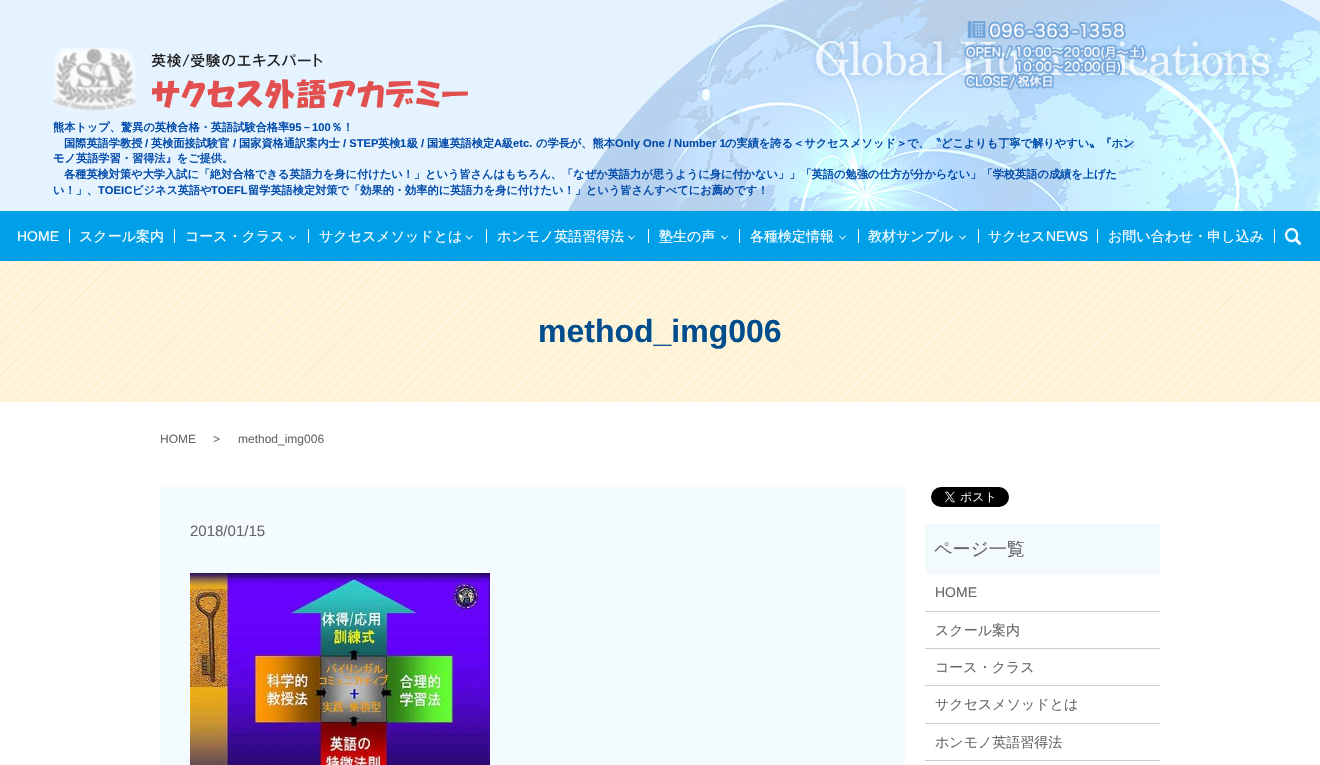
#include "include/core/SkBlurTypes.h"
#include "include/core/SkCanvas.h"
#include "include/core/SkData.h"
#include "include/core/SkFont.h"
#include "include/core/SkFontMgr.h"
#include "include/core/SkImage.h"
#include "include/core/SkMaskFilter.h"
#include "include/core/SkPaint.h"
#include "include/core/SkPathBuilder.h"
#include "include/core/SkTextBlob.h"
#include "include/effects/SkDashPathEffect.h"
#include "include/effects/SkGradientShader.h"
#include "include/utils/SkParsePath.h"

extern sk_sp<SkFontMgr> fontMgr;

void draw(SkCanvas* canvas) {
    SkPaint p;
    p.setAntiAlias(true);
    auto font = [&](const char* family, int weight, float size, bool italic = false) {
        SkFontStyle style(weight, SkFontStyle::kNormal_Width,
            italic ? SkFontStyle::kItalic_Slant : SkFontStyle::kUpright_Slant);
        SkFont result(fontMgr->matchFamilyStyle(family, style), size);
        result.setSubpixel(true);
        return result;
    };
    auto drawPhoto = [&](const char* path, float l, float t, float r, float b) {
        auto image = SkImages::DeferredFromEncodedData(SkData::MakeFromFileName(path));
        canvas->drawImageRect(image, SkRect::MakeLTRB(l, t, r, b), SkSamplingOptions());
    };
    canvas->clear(0xFFFFFFFF);
    drawPhoto("media/1.png", 0, 0, 1320, 211);
    drawPhoto("media/2.png", 53, 48, 468, 111);
    drawPhoto("media/3.png", 964, 21, 1146, 90);
    auto font1 = font("WenQuanYi Zen Hei", 700, 11.2f);
    p.setColor(0xFF004AAA);
    canvas->drawString("熊本トップ、驚異の英検合格・英語試験合格率", 53, 131, font1, p);
    auto font2 = font("Liberation Sans", 700, 11.2f);
    canvas->drawString("95", 289, 131, font2, p);
    canvas->drawString("－", 301, 131, font1, p);
    canvas->drawString("100", 312, 131, font2, p);
    canvas->drawString("％！", 331, 131, font1, p);
    canvas->drawString("国際英語学教授", 64, 147, font1, p);
    canvas->drawString("/", 145, 147, font2, p);
    canvas->drawString("英検面接試験官", 151, 147, font1, p);
    canvas->drawString("/", 233, 147, font2, p);
    canvas->drawString("国家資格通訳案内士", 239, 147, font1, p);
    canvas->drawString("/ STEP", 343, 147, font2, p);
    canvas->drawString("英検", 378, 147, font1, p);
    canvas->drawString("1", 400, 147, font2, p);
    canvas->drawString("級", 407, 147, font1, p);
    canvas->drawString("/", 421, 147, font2, p);
    canvas->drawString("国連英語検定", 427, 147, font1, p);
    canvas->drawString("A", 494, 147, font2, p);
    canvas->drawString("級", 502, 147, font1, p);
    canvas->drawString("etc.", 513, 147, font2, p);
    canvas->drawString("の学長が、熊本", 536, 147, font1, p);
    canvas->drawString("Only One / Number 1", 615, 147, font2, p);
    {
        const struct { const char* s; float x, y; } items[] = {
            {"の実績を誇る＜サクセスメソッド＞で、〝どこよりも丁寧で解りやすい〟『ホン", 725, 147},
            {"モノ英語学習・習得法』をご提供。", 53, 162},
            {"各種英検対策や大学入試に「絶対合格できる英語力を身に付けたい！」という皆さんはもちろん、「なぜか英語力が思うように身に付かない」」「英語の勉強の仕方が分からない」「学校英語の成績を上げた", 64, 178},
            {"い！」、", 53, 194},
        };
        for (auto [s, x, y] : items) {
            canvas->drawString(s, x, y, font1, p);
        }
    }
    canvas->drawString("TOEIC", 98, 194, font2, p);
    canvas->drawString("ビジネス英語や", 132, 194, font1, p);
    canvas->drawString("TOEFL", 211, 194, font2, p);
    canvas->drawString("留学英語検定対策で「効果的・効率的に英語力を身に付けたい！」という皆さんすべてにお薦めです！", 248, 194, font1, p);
    p.setColor(0xFF00A0E9);
    canvas->drawRect(SkRect::MakeLTRB(0, 211, 1320, 261), p);
    p.setColor(0xFFFFFFFF);
    canvas->drawRect(SkRect::MakeLTRB(69, 229, 70, 243), p);
    auto font3 = font("Liberation Sans", 400, 14);
    canvas->drawString("HOME", 17, 241, font3, p);
    canvas->drawRect(SkRect::MakeLTRB(174, 229, 175, 243), p);
    auto font4 = font("WenQuanYi Zen Hei", 500, 14);
    canvas->drawString("スクール案内", 79, 241, font4, p);
    canvas->drawRect(SkRect::MakeLTRB(308, 229, 309, 243), p);
    canvas->drawString("コース・クラス", 185, 241, font4, p);
    canvas->drawPath(SkPathBuilder().moveTo(296, 236).lineTo(292.5f, 239.5f).lineTo(292, 239).lineTo(295.5f, 235.5f).close().detach(), p);
    canvas->drawPath(SkPathBuilder().moveTo(293.5f, 239).lineTo(292.5f, 239.5f).lineTo(289, 236).lineTo(290, 235.5f).close().detach(), p);
    canvas->drawRect(SkRect::MakeLTRB(486, 229, 487, 243), p);
    canvas->drawString("サクセスメソッドとは", 319, 241, font4, p);
    canvas->drawPath(SkPathBuilder().moveTo(473, 236).lineTo(469, 239.5f).lineTo(468.5f, 239).lineTo(472, 235.5f).close().detach(), p);
    canvas->drawPath(SkPathBuilder().moveTo(470, 239).lineTo(469, 239.5f).lineTo(465.5f, 236).lineTo(466.5f, 235.5f).close().detach(), p);
    canvas->drawRect(SkRect::MakeLTRB(648, 229, 649, 243), p);
    canvas->drawString("ホンモノ英語習得法", 497, 241, font4, p);
    canvas->drawPath(SkPathBuilder().moveTo(635, 236).lineTo(631.5f, 239.5f).lineTo(631, 239).lineTo(634.5f, 235.5f).close().detach(), p);
    canvas->drawPath(SkPathBuilder().moveTo(632.5f, 239).lineTo(631.5f, 239.5f).lineTo(628, 236).lineTo(629, 235.5f).close().detach(), p);
    canvas->drawRect(SkRect::MakeLTRB(739, 229, 740, 243), p);
    canvas->drawString("塾生の声", 659, 241, font4, p);
    canvas->drawPath(SkPathBuilder().moveTo(728, 236).lineTo(724.5f, 239.5f).lineTo(724, 239).lineTo(727.5f, 235.5f).close().detach(), p);
    canvas->drawPath(SkPathBuilder().moveTo(725.5f, 239).lineTo(724.5f, 239.5f).lineTo(721, 236).lineTo(722, 235.5f).close().detach(), p);
    canvas->drawRect(SkRect::MakeLTRB(858, 229, 859, 243), p);
    canvas->drawString("各種検定情報", 750, 241, font4, p);
    canvas->drawPath(SkPathBuilder().moveTo(846, 236).lineTo(842.5f, 239.5f).lineTo(841.5f, 239).lineTo(845.5f, 235.5f).close().detach(), p);
    canvas->drawPath(SkPathBuilder().moveTo(843, 239).lineTo(842.5f, 239.5f).lineTo(839, 236).lineTo(839.5f, 235.5f).close().detach(), p);
    canvas->drawRect(SkRect::MakeLTRB(978, 229, 979, 243), p);
    canvas->drawString("教材サンプル", 868, 241, font4, p);
    canvas->drawPath(SkPathBuilder().moveTo(966, 236).lineTo(962.5f, 239.5f).lineTo(961.5f, 239).lineTo(965, 235.5f).close().detach(), p);
    canvas->drawPath(SkPathBuilder().moveTo(963, 239).lineTo(962.5f, 239.5f).lineTo(959, 236).lineTo(959.5f, 235.5f).close().detach(), p);
    canvas->drawRect(SkRect::MakeLTRB(1097, 229, 1098, 243), p);
    canvas->drawString("サクセス", 988, 241, font4, p);
    canvas->drawString("NEWS", 1046, 241, font3, p);
    canvas->drawRect(SkRect::MakeLTRB(1274, 229, 1275, 243), p);
    canvas->drawString("お問い合わせ・申し込み", 1108, 241, font4, p);
    drawPhoto("media/4.png", 1285, 228, 1301, 245);
    drawPhoto("media/5.png", 0, 261, 1320, 402);
    auto font5 = font("Liberation Sans", 700, 32);
    p.setColor(0xFF004D8D);
    canvas->drawString("method_img006", 538, 342, font5, p);
    auto font6 = font("Liberation Sans", 400, 12);
    p.setColor(0xFF666666);
    {
        const struct { const char* s; float x, y; } items[] = {
            {"HOME", 160, 443},
            {">", 213, 443},
            {"method_img006", 238, 443},
        };
        for (auto [s, x, y] : items) {
            canvas->drawString(s, x, y, font6, p);
        }
    }
    p.setColor(0xFFF3FBFF);
    canvas->drawRect(SkRect::MakeLTRB(160, 487, 905, 765), p);
    auto font7 = font("Liberation Sans", 400, 15);
    p.setColor(0xFF666666);
    canvas->drawString("2018/01/15", 190, 536, font7, p);
    drawPhoto("media/6.png", 190, 573, 490, 765);
    drawPhoto("media/7.png", 931, 487, 1009, 507);
    p.setColor(0xFFF2FAFE);
    canvas->drawRect(SkRect::MakeLTRB(925, 524, 1160, 574), p);
    auto font8 = font("WenQuanYi Zen Hei", 500, 18);
    p.setColor(0xFF666666);
    canvas->drawString("ページ一覧", 934, 555, font8, p);
    p.setColor(0xFFCCCCCC);
    canvas->drawRect(SkRect::MakeLTRB(925, 611, 1160, 612), p);
    p.setColor(0xFF666666);
    canvas->drawString("HOME", 935, 597, font3, p);
    p.setColor(0xFFCCCCCC);
    canvas->drawRect(SkRect::MakeLTRB(925, 648, 1160, 649), p);
    p.setColor(0xFF666666);
    canvas->drawString("スクール案内", 935, 635, font4, p);
    p.setColor(0xFFCCCCCC);
    canvas->drawRect(SkRect::MakeLTRB(925, 685, 1160, 686), p);
    p.setColor(0xFF666666);
    canvas->drawString("コース・クラス", 935, 672, font4, p);
    p.setColor(0xFFCCCCCC);
    canvas->drawRect(SkRect::MakeLTRB(925, 723, 1160, 724), p);
    p.setColor(0xFF666666);
    canvas->drawString("サクセスメソッドとは", 935, 709, font4, p);
    p.setColor(0xFFCCCCCC);
    canvas->drawRect(SkRect::MakeLTRB(925, 760, 1160, 761), p);
    p.setColor(0xFF666666);
    canvas->drawString("ホンモノ英語習得法", 935, 747, font4, p);
}
